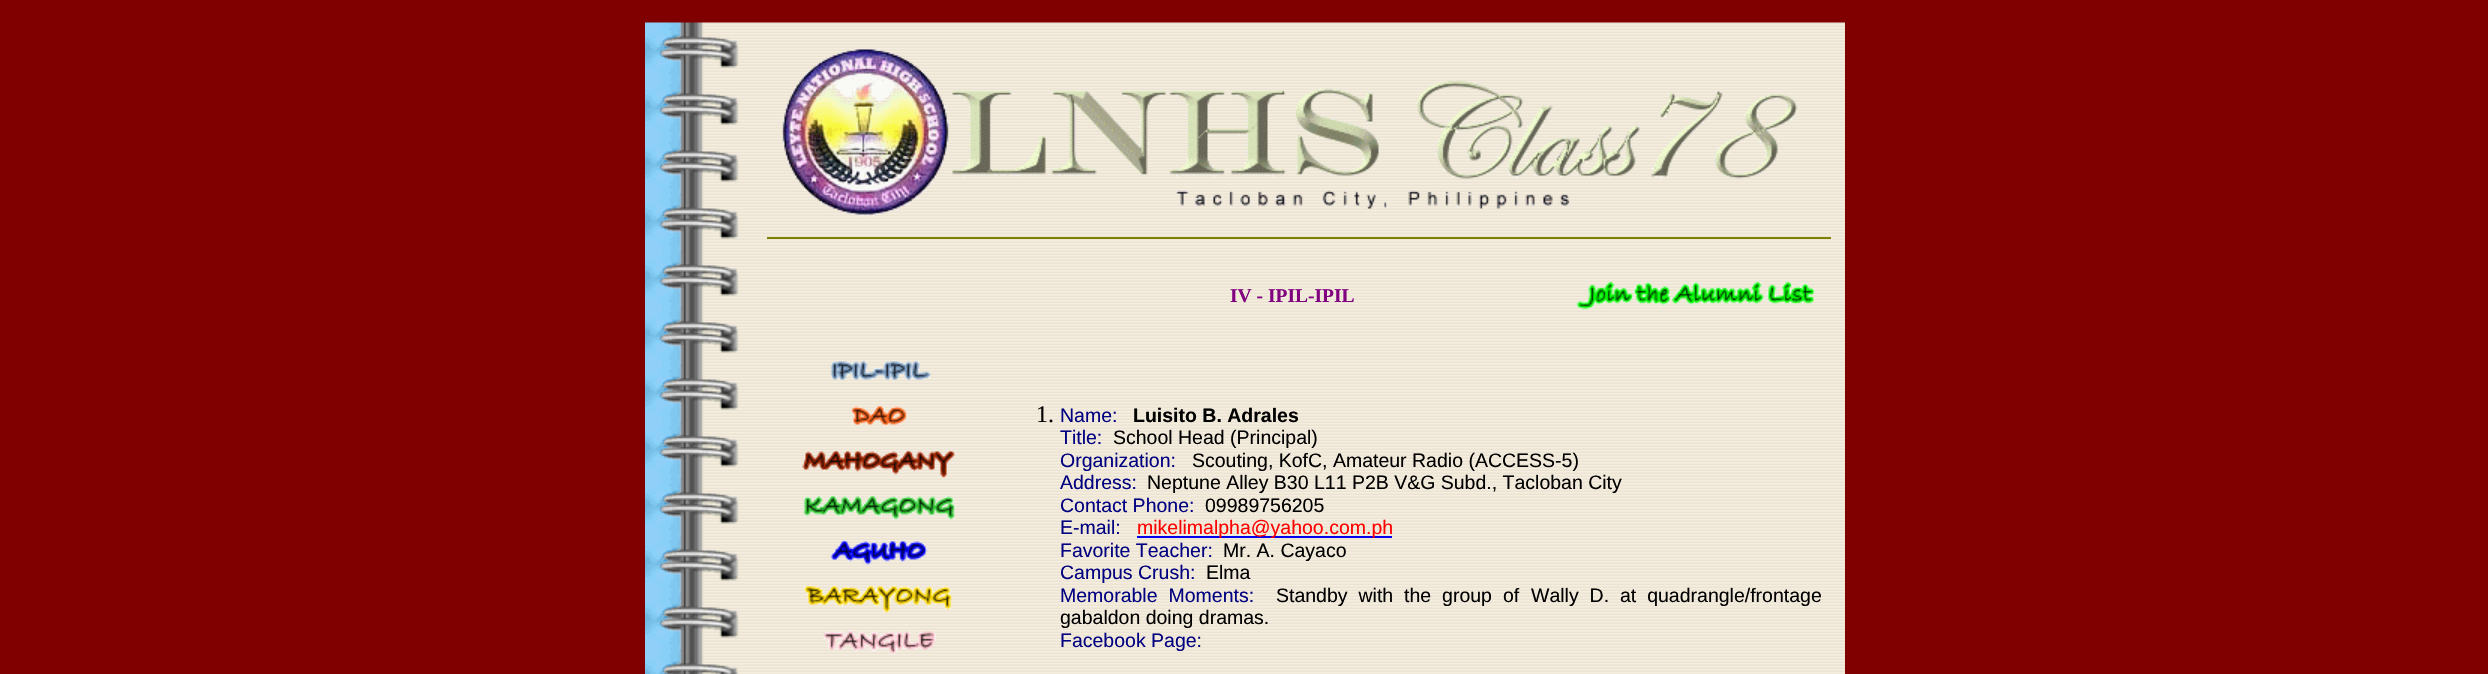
#include "include/core/SkBlurTypes.h"
#include "include/core/SkCanvas.h"
#include "include/core/SkData.h"
#include "include/core/SkFont.h"
#include "include/core/SkFontMgr.h"
#include "include/core/SkImage.h"
#include "include/core/SkMaskFilter.h"
#include "include/core/SkPaint.h"
#include "include/core/SkPathBuilder.h"
#include "include/core/SkTextBlob.h"
#include "include/effects/SkDashPathEffect.h"
#include "include/effects/SkGradientShader.h"
#include "include/utils/SkParsePath.h"

extern sk_sp<SkFontMgr> fontMgr;

void draw(SkCanvas* canvas) {
    SkPaint p;
    p.setAntiAlias(true);
    auto font = [&](const char* family, int weight, float size, bool italic = false) {
        SkFontStyle style(weight, SkFontStyle::kNormal_Width,
            italic ? SkFontStyle::kItalic_Slant : SkFontStyle::kUpright_Slant);
        SkFont result(fontMgr->matchFamilyStyle(family, style), size);
        result.setSubpixel(true);
        return result;
    };
    auto drawTracked = [&](const char* s, float x, float y, const SkFont& font, const SkPaint& ink, float letter, float word) {
        std::vector<SkGlyphID> glyphs(font.countText(s, strlen(s), SkTextEncoding::kUTF8));
        std::vector<float> xs(glyphs.size());
        font.textToGlyphs(s, strlen(s), SkTextEncoding::kUTF8, glyphs);
        font.getXPos(glyphs, xs, x);
        float extra = 0;
        for (size_t i = 0; i < glyphs.size(); i++) {
            xs[i] += extra;
            extra += letter + word * (glyphs[i] == font.unicharToGlyph(' '));
        }
        canvas->drawTextBlob(SkTextBlob::MakeFromPosHGlyphs(glyphs, xs, y, font), 0, 0, ink);
    };
    auto drawPhoto = [&](const char* path, float l, float t, float r, float b) {
        auto image = SkImages::DeferredFromEncodedData(SkData::MakeFromFileName(path));
        canvas->drawImageRect(image, SkRect::MakeLTRB(l, t, r, b), SkSamplingOptions());
    };
    canvas->clear(0xFF800000);
    drawPhoto("media/1.png", 645, 22, 1845, 674);
    drawPhoto("media/2.png", 781, 49, 1798, 217);
    p.setColor(0xFF808000);
    canvas->drawRect(SkRect::MakeLTRB(767, 237, 1831, 239), p);
    auto font1 = font("Liberation Serif", 700, 19.5f);
    p.setColor(0xFF800080);
    canvas->drawString("IV - IPIL-IPIL", 1230, 302, font1, p);
    drawPhoto("media/3.png", 1576, 281, 1816, 310);
    drawPhoto("media/4.png", 830, 361, 931, 380);
    drawPhoto("media/5.png", 851, 405, 908, 427);
    drawPhoto("media/6.png", 802, 450, 955, 478);
    drawPhoto("media/7.png", 803, 494, 956, 520);
    drawPhoto("media/8.png", 830, 539, 928, 565);
    drawPhoto("media/9.png", 803, 584, 952, 613);
    drawPhoto("media/10.png", 823, 629, 937, 654);
    auto font2 = font("Liberation Serif", 400, 24);
    p.setColor(0xFF000000);
    canvas->drawString("1.", 1036, 422, font2, p);
    auto font3 = font("Liberation Sans", 400, 19.5f);
    p.setColor(0xFF000080);
    canvas->drawString("Name:", 1060, 422, font3, p);
    auto font4 = font("Liberation Sans", 700, 19.5f);
    p.setColor(0xFF000000);
    canvas->drawString("Luisito B. Adrales", 1133, 422, font4, p);
    p.setColor(0xFF000080);
    canvas->drawString("Title:", 1060, 444, font3, p);
    p.setColor(0xFF000000);
    canvas->drawString("School Head (Principal)", 1113, 444, font3, p);
    p.setColor(0xFF000080);
    canvas->drawString("Organization:", 1060, 467, font3, p);
    p.setColor(0xFF000000);
    canvas->drawString("Scouting, KofC, Amateur Radio (ACCESS-5)", 1192, 467, font3, p);
    p.setColor(0xFF000080);
    canvas->drawString("Address:", 1060, 489, font3, p);
    p.setColor(0xFF000000);
    canvas->drawString("Neptune Alley B30 L11 P2B V&G Subd., Tacloban City", 1147, 489, font3, p);
    p.setColor(0xFF000080);
    canvas->drawString("Contact Phone:", 1060, 512, font3, p);
    p.setColor(0xFF000000);
    canvas->drawString("09989756205", 1205, 512, font3, p);
    p.setColor(0xFF000080);
    canvas->drawString("E-mail:", 1060, 534, font3, p);
    p.setColor(0xFF0000EE);
    canvas->drawRect(SkRect::MakeLTRB(1137, 536, 1392, 538), p);
    p.setColor(0xFFFF0000);
    canvas->drawString("mikelimalpha@yahoo.com.ph", 1137, 534, font3, p);
    p.setColor(0xFF000080);
    canvas->drawString("Favorite Teacher:", 1060, 557, font3, p);
    p.setColor(0xFF000000);
    canvas->drawString("Mr. A. Cayaco", 1223, 557, font3, p);
    p.setColor(0xFF000080);
    canvas->drawString("Campus Crush:", 1060, 579, font3, p);
    p.setColor(0xFF000000);
    canvas->drawString("Elma", 1206, 579, font3, p);
    p.setColor(0xFF000080);
    drawTracked("Memorable Moments:", 1060, 602, font3, p, 0, 5.5f);
    p.setColor(0xFF000000);
    drawTracked("Standby with the group of", 1276, 602, font3, p, 0, 5.5f);
    drawTracked("Wally D. at quadrangle/frontage", 1531, 602, font3, p, 0, 5.5f);
    canvas->drawString("gabaldon doing dramas.", 1060, 624, font3, p);
    p.setColor(0xFF000080);
    canvas->drawString("Facebook Page:", 1060, 647, font3, p);
}
